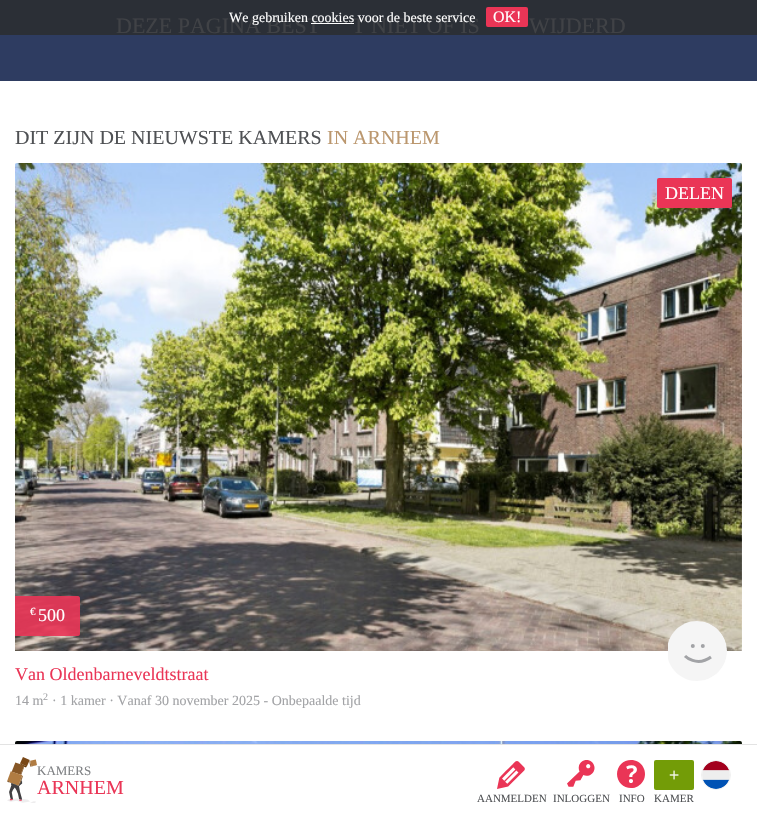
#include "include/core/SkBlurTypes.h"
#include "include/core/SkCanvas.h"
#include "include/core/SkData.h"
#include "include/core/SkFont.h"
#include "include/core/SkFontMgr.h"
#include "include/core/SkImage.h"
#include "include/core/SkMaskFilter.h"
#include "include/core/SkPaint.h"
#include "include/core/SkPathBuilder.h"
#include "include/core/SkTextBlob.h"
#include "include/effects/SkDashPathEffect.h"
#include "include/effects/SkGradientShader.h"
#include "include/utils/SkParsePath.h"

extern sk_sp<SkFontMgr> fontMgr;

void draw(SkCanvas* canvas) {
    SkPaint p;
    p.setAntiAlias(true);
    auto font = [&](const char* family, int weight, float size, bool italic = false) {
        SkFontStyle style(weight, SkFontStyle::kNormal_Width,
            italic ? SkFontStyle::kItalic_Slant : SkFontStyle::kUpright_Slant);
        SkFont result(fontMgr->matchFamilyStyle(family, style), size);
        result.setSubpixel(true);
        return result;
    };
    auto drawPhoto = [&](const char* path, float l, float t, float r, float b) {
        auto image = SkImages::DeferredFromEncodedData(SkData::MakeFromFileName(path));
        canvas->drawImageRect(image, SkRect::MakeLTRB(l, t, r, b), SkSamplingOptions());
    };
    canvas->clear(0xFFFFFFFF);
    p.setColor(0xFF2B2F36);
    canvas->drawRect(SkRect::MakeLTRB(0, 0, 757, 35), p);
    auto font1 = font("Liberation Serif", 400, 22);
    p.setColor(0xFF404246);
    canvas->drawString("DEZE PAGINA BEST", 116, 33, font1, p);
    canvas->drawString("T NIET OF IS", 352, 33, font1, p);
    auto font2 = font("Liberation Serif", 400, 14);
    p.setColor(0xFFFFFFFF);
    canvas->drawString("We gebruiken cookies voor de beste service", 229, 22, font2, p);
    p.setColor(0xFFEA3556);
    canvas->drawRoundRect(SkRect::MakeLTRB(486, 7, 528, 27), 2, 2, p);
    auto font3 = font("Liberation Serif", 400, 16);
    p.setColor(0xFFFFFFFF);
    canvas->drawString("OK!", 493, 22, font3, p);
    canvas->drawRect(SkRect::MakeLTRB(311, 23, 354, 24), p);
    p.setColor(0xFF2E3C61);
    canvas->drawRect(SkRect::MakeLTRB(0, 35, 757, 81), p);
    p.setColor(0xFF404246);
    canvas->drawString("WIJDERD", 529, 33, font1, p);
    auto font4 = font("Liberation Serif", 400, 20);
    p.setColor(0xFF4F5154);
    canvas->drawString("DIT ZIJN DE NIEUWSTE KAMERS", 15, 144, font4, p);
    p.setColor(0xFFBB976E);
    canvas->drawString("IN ARNHEM", 327, 144, font4, p);
    drawPhoto("media/1.png", 15, 163, 742, 651);
    p.setColor(0xFFEA3556);
    canvas->drawRoundRect(SkRect::MakeLTRB(657, 178, 732, 208), 2, 2, p);
    auto font5 = font("Liberation Serif", 400, 18);
    p.setColor(0xFFFFFFFF);
    canvas->drawString("DELEN", 665, 199, font5, p);
    p.setColor(0xE6EA3556);
    canvas->drawPath(SkPathBuilder().moveTo(15, 596).lineTo(78, 596).cubicTo(79, 596, 80, 597, 80, 598).lineTo(80, 634).cubicTo(80, 635, 79, 636, 78, 636).lineTo(15, 636).close().detach(), p);
    auto font6 = font("Liberation Serif", 400, 11);
    p.setColor(0xFFFFFFFF);
    canvas->drawString("€", 30, 615, font6, p);
    canvas->drawString("500", 38, 621, font5, p);
    p.setColor(0xFFEA3556);
    canvas->drawString("Van Oldenbarneveldtstraat", 15, 680, font5, p);
    canvas->save();
    canvas->clipPath(SkPathBuilder().moveTo(697, 621).cubicTo(713.5f, 621, 727, 634.5f, 727, 651).cubicTo(727, 667.5f, 713.5f, 681, 697, 681).cubicTo(680.5f, 681, 667, 667.5f, 667, 651).cubicTo(667, 634.5f, 680.5f, 621, 697, 621).close().detach(), true);
    p.setColor(0xFFF5F5F5);
    canvas->drawPath(SkPathBuilder().moveTo(668, 621).lineTo(697, 621).cubicTo(713.5f, 621, 727, 634.5f, 727, 651).cubicTo(727, 667.5f, 713.5f, 681, 697, 681).lineTo(668, 681).close().detach(), p);
    canvas->restore();
    p.setStyle(SkPaint::kStroke_Style);
    p.setStrokeWidth(3);
    p.setColor(0xFFA2A3A6);
    canvas->drawPath(SkPathBuilder().moveTo(685, 656).cubicTo(685, 656, 696.5f, 667.5f, 711, 657).detach(), p);
    p.setStyle(SkPaint::kFill_Style);
    canvas->drawCircle(692.8f, 646, 2, p);
    canvas->drawCircle(702.8f, 646, 2, p);
    canvas->drawString("14 m", 15, 705, font2, p);
    auto font7 = font("Liberation Serif", 400, 10);
    canvas->drawString("2", 43, 700, font7, p);
    canvas->drawString("· 1 kamer · Vanaf 30 november 2025 - Onbepaalde tijd", 52, 705, font2, p);
    drawPhoto("media/2.png", 15, 741, 742, 744);
    p.setColor(0xFFE3E3E3);
    canvas->drawRect(SkRect::MakeLTRB(0, 744, 757, 745), p);
    drawPhoto("media/3.png", 7, 757, 37, 803);
    auto font8 = font("Liberation Serif", 400, 13);
    p.setColor(0xFF808285);
    canvas->drawString("KAMERS", 37, 775, font8, p);
    p.setColor(0xFFEA3556);
    canvas->drawString("ARNHEM", 37, 794, font4, p);
    drawPhoto("media/4.png", 497, 761, 525, 789);
    p.setColor(0xFF4F5154);
    canvas->drawString("AANMELDEN", 477, 802, font6, p);
    drawPhoto("media/5.png", 567, 760, 595, 787);
    canvas->drawString("INLOGGEN", 553, 802, font6, p);
    drawPhoto("media/6.png", 617, 760, 645, 788);
    canvas->drawString("INFO", 619, 802, font6, p);
    p.setColor(0xFF739C07);
    canvas->drawRoundRect(SkRect::MakeLTRB(654, 760, 694, 790), 2, 2, p);
    p.setColor(0xFFFFFFFF);
    canvas->drawString("+", 669, 781, font5, p);
    p.setColor(0xFF4F5154);
    canvas->drawString("KAMER", 654, 802, font6, p);
    p.setStyle(SkPaint::kStroke_Style);
    p.setStrokeWidth(1);
    p.setColor(0xFFF0F0F0);
    canvas->drawCircle(716, 775, 14.5f, p);
    drawPhoto("media/7.png", 702, 761, 730, 789);
}
